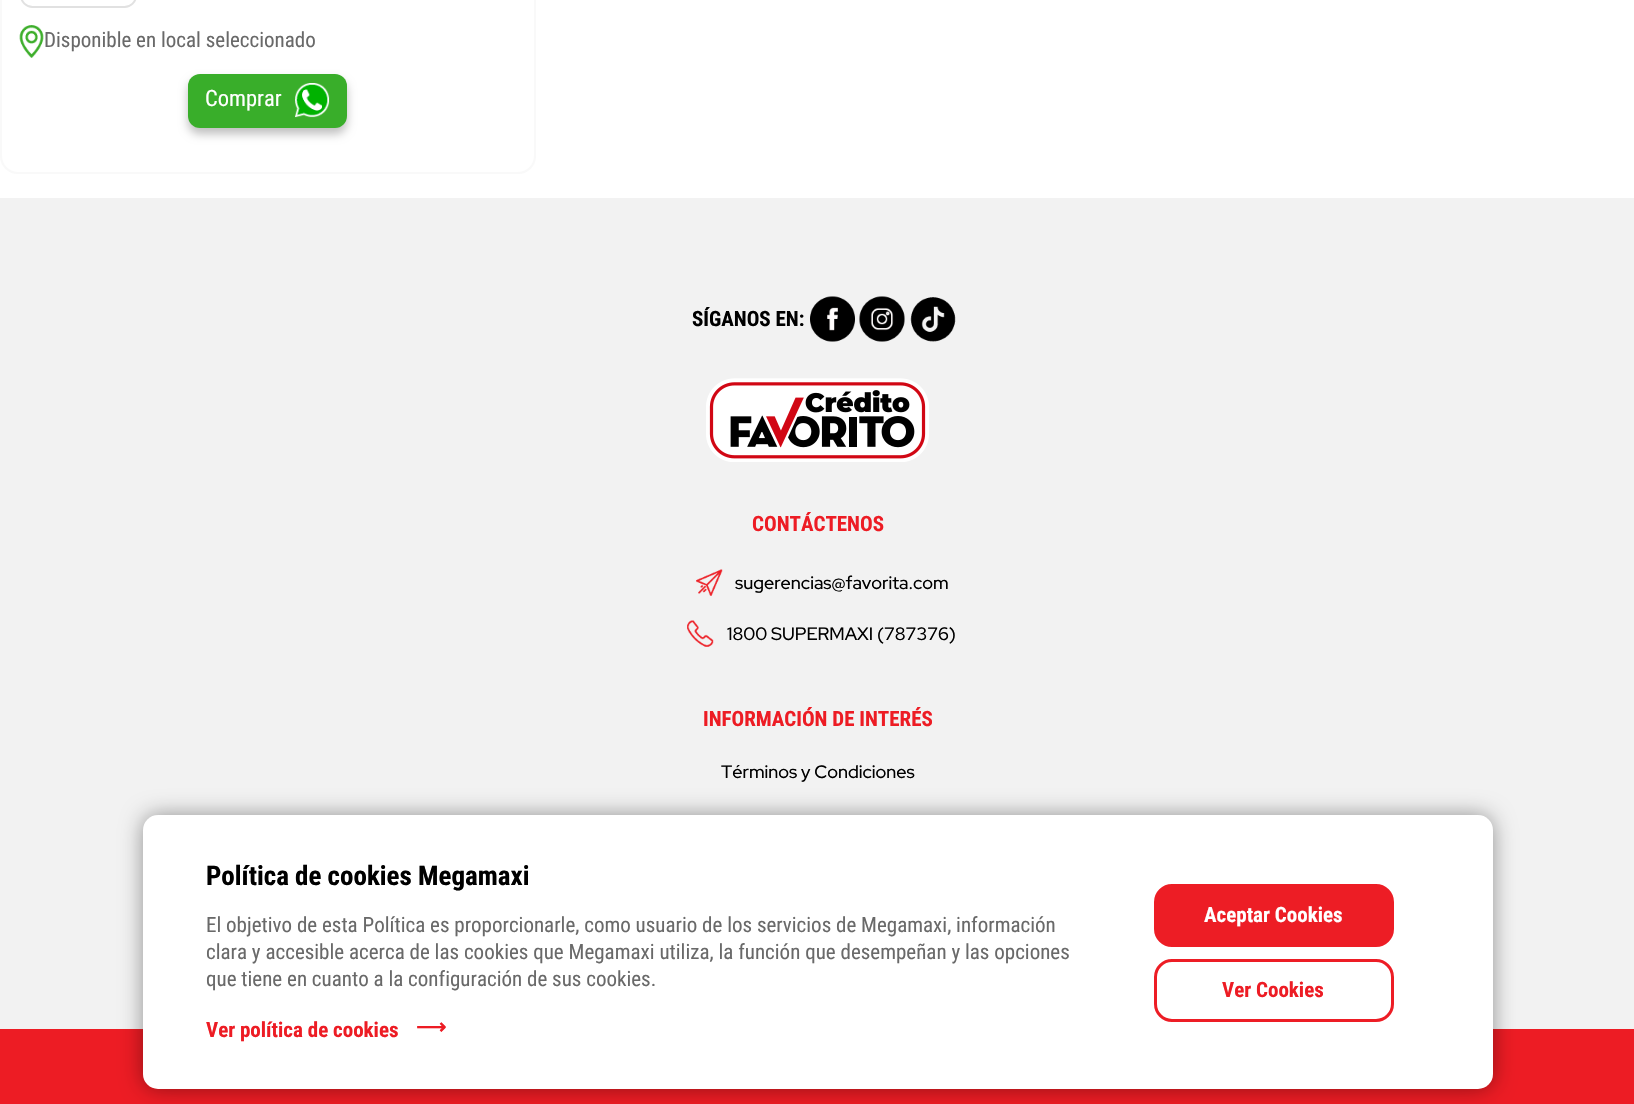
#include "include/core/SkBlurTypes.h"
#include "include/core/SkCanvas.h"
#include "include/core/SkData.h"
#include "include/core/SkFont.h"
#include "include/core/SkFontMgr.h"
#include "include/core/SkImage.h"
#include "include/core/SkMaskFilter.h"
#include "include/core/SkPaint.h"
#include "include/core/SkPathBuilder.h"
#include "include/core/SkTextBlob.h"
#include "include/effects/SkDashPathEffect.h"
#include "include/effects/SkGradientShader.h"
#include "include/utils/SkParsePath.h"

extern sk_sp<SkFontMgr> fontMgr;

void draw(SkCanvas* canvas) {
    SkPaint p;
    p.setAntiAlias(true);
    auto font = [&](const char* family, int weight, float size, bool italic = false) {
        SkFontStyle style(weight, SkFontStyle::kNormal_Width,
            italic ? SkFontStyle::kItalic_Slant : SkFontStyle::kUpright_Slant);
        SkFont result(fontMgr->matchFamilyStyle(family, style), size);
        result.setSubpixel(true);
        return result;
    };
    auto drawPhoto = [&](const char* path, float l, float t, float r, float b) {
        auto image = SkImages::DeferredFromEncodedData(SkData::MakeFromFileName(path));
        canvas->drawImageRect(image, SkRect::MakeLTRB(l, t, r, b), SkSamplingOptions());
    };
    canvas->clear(0xFFFFFFFF);
    p.setStyle(SkPaint::kStroke_Style);
    p.setStrokeWidth(2);
    p.setColor(0xFFF9F9F9);
    canvas->drawRoundRect(SkRect::MakeLTRB(1, -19, 535, 173), 17, 17, p);
    p.setColor(0xFFE1E1E1);
    canvas->drawRoundRect(SkRect::MakeLTRB(21, -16, 136, 7), 14, 14, p);
    drawPhoto("media/1.png", 19, 25, 44, 58);
    auto font1 = font("Roboto Condensed", 400, 21);
    p.setStyle(SkPaint::kFill_Style);
    p.setColor(0xFF696969);
    canvas->drawString("Disponible en local seleccionado", 44, 47, font1, p);
    p.setColor(0x40000000);
    p.setMaskFilter(SkMaskFilter::MakeBlur(kNormal_SkBlurStyle, 5));
    canvas->drawRoundRect(SkRect::MakeLTRB(188, 80, 347, 134), 12, 12, p);
    p.setMaskFilter(nullptr);
    p.setColor(0xFF39AE2A);
    canvas->drawRoundRect(SkRect::MakeLTRB(188, 74, 347, 128), 12, 12, p);
    auto font2 = font("Roboto Condensed", 400, 22.5f);
    p.setColor(0xFFFFFFFF);
    canvas->drawString("Comprar", 205, 106, font2, p);
    drawPhoto("media/2.png", 295, 83, 330, 118);
    p.setColor(0xFFF2F2F2);
    canvas->drawRect(SkRect::MakeLTRB(0, 198, 1634, 1029), p);
    auto font3 = font("Roboto Condensed", 700, 21);
    p.setColor(0xFF000000);
    canvas->drawString("SÍGANOS EN:", 692, 326, font3, p);
    drawPhoto("media/3.png", 810, 296, 855, 342);
    drawPhoto("media/4.png", 859, 296, 905, 342);
    drawPhoto("media/5.png", 910, 297, 956, 342);
    drawPhoto("media/6.png", 706, 378, 929, 462);
    p.setColor(0xFFED1C24);
    canvas->drawString("CONTÁCTENOS", 752, 531, font3, p);
    drawPhoto("media/7.png", 696, 569, 723, 596);
    auto font4 = font("Red Hat Display", 500, 18);
    p.setColor(0xFF000000);
    canvas->drawString("sugerencias@favorita.com", 735, 589, font4, p);
    drawPhoto("media/8.png", 687, 620, 714, 647);
    canvas->drawString("1800 SUPERMAXI (787376)", 727, 640, font4, p);
    p.setColor(0xFFED1C24);
    canvas->drawString("INFORMACIÓN DE INTERÉS", 703, 726, font3, p);
    p.setColor(0xFF000000);
    canvas->drawString("Términos y Condiciones", 721, 778, font4, p);
    p.setColor(0xFFED1C24);
    canvas->drawRect(SkRect::MakeLTRB(0, 1029, 1634, 1104), p);
    p.setColor(0x66000000);
    p.setMaskFilter(SkMaskFilter::MakeBlur(kNormal_SkBlurStyle, 11));
    canvas->drawRoundRect(SkRect::MakeLTRB(143, 815, 1493, 1089), 15, 15, p);
    p.setMaskFilter(nullptr);
    p.setColor(0xFFFFFFFF);
    canvas->drawRoundRect(SkRect::MakeLTRB(143, 815, 1493, 1089), 15, 15, p);
    auto font5 = font("Roboto Condensed", 700, 27);
    p.setColor(0xFF000000);
    canvas->drawString("Política de cookies Megamaxi", 206, 885, font5, p);
    p.setColor(0xFF696969);
    {
        const struct { const char* s; float x, y; } items[] = {
            {"El objetivo de esta Política es proporcionarle, como usuario de los servicios de Megamaxi, información", 206, 932},
            {"clara y accesible acerca de las cookies que Megamaxi utiliza, la función que desempeñan y las opciones", 206, 959},
            {"que tiene en cuanto a la configuración de sus cookies.", 206, 986},
        };
        for (auto [s, x, y] : items) {
            canvas->drawString(s, x, y, font1, p);
        }
    }
    p.setColor(0xFFED1C24);
    canvas->drawString("Ver política de cookies", 206, 1037, font3, p);
    auto font6 = font("DejaVu Sans", 700, 21);
    canvas->drawString("⟶", 416, 1034, font6, p);
    p.setColor(0xFFED1D25);
    canvas->drawRoundRect(SkRect::MakeLTRB(1155.5f, 885.5f, 1392.5f, 945.5f), 16.5f, 16.5f, p);
    p.setStyle(SkPaint::kStroke_Style);
    p.setStrokeWidth(3);
    canvas->drawRoundRect(SkRect::MakeLTRB(1155.5f, 885.5f, 1392.5f, 945.5f), 16.5f, 16.5f, p);
    p.setStyle(SkPaint::kFill_Style);
    p.setColor(0xFFFFFFFF);
    canvas->drawString("Aceptar Cookies", 1204, 922, font3, p);
    p.setStyle(SkPaint::kStroke_Style);
    p.setColor(0xFFED1D25);
    canvas->drawRoundRect(SkRect::MakeLTRB(1155.5f, 960.5f, 1392.5f, 1020.5f), 16.5f, 16.5f, p);
    p.setStyle(SkPaint::kFill_Style);
    p.setColor(0xFFED1C24);
    canvas->drawString("Ver Cookies", 1222, 997, font3, p);
}
